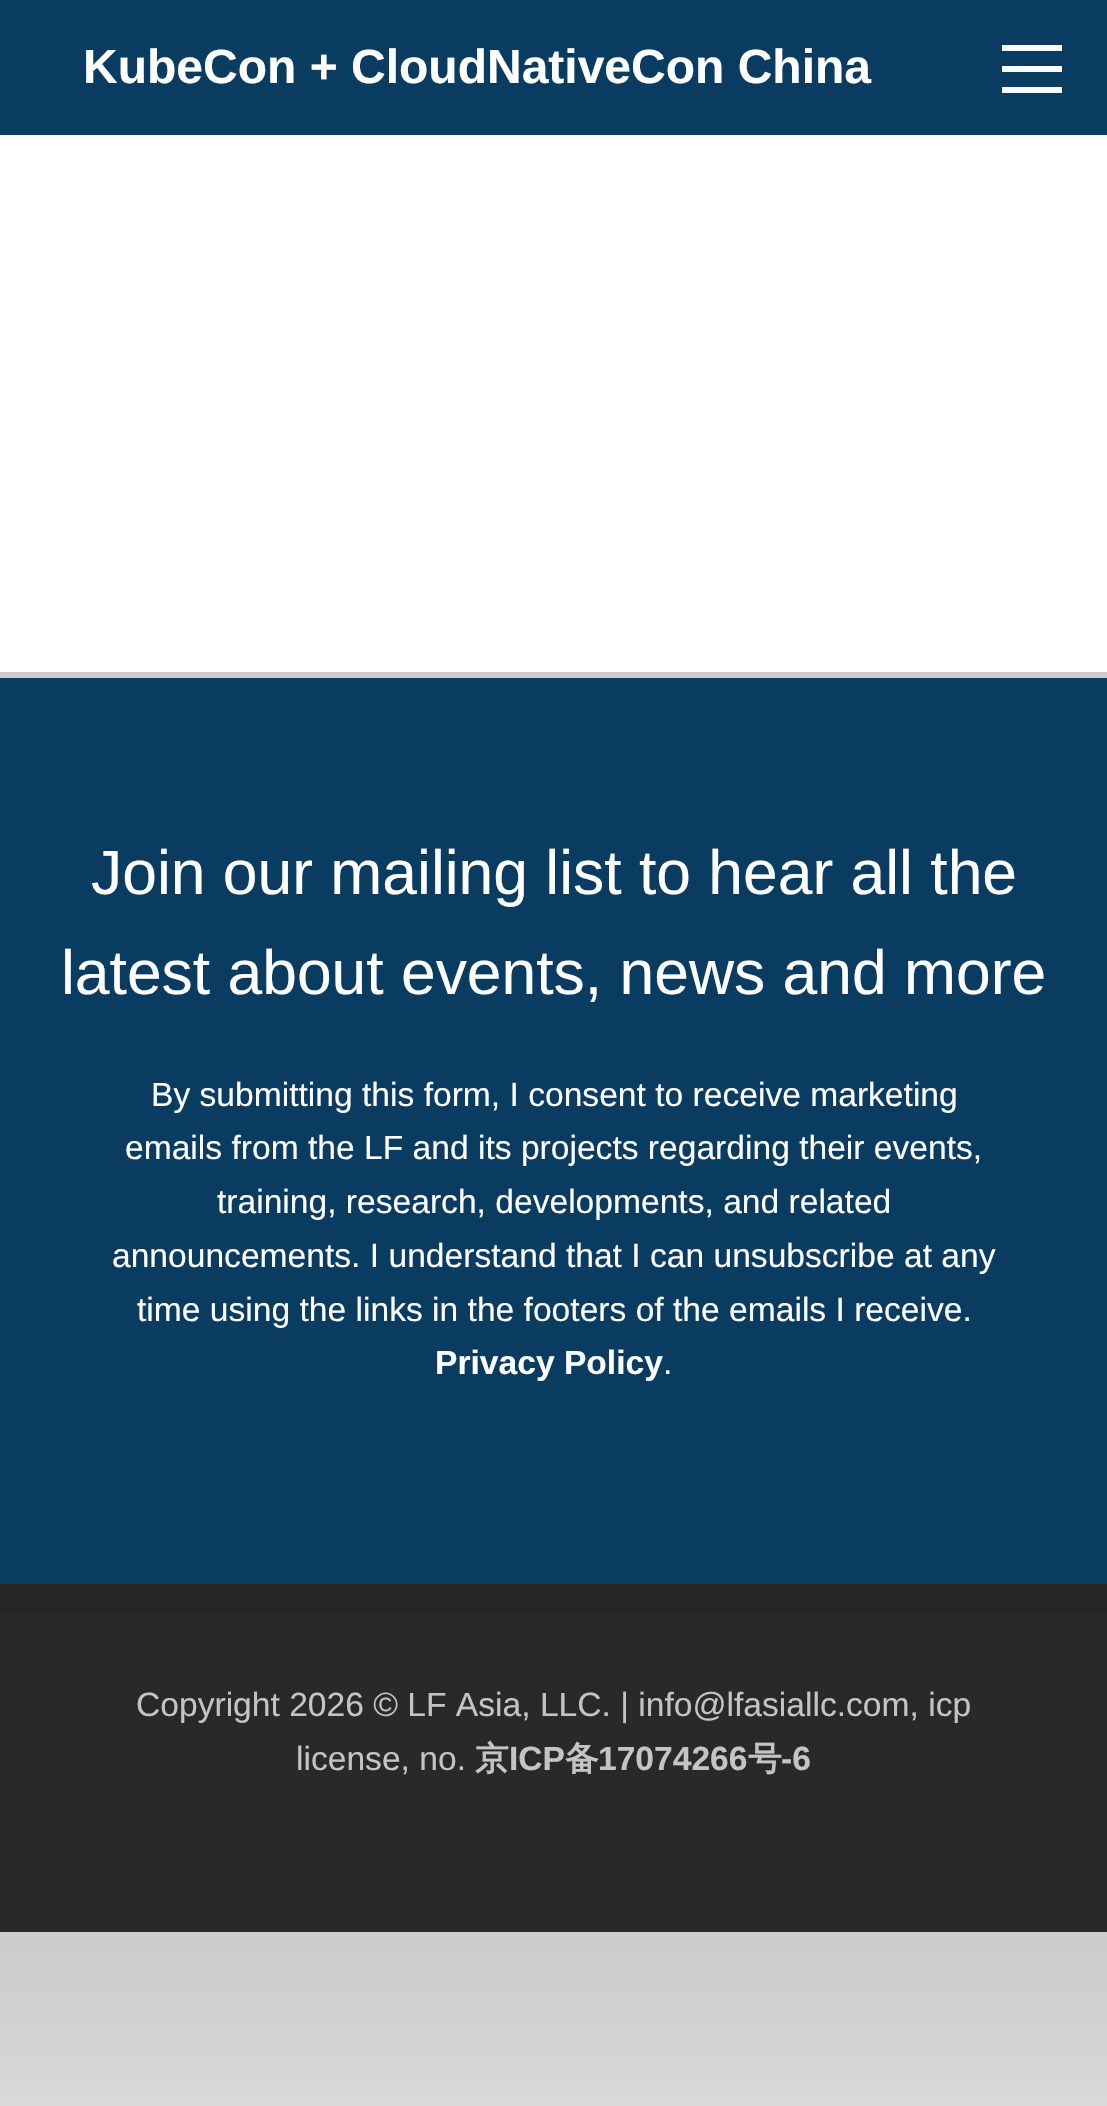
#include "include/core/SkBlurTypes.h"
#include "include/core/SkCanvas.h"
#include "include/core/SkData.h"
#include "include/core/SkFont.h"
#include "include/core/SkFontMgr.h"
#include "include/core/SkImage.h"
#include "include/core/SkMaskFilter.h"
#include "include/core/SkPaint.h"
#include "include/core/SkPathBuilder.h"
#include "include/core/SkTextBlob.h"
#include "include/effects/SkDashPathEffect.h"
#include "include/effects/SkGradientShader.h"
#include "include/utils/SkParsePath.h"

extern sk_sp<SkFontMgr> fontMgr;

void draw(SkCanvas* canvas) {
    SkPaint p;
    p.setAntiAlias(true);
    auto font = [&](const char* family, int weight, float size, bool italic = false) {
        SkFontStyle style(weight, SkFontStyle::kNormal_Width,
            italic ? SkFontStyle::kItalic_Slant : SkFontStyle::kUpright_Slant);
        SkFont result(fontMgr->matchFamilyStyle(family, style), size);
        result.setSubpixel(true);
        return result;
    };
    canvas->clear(0xFFFFFFFF);
    p.setColor(0xFF333333);
    canvas->drawRect(SkRect::MakeLTRB(0, 1614, 1107, 1932), p);
    p.setColor(0xFF2E2E2E);
    canvas->drawRect(SkRect::MakeLTRB(0, 1584, 1107, 1614), p);
    canvas->save();
    canvas->clipRect(SkRect::MakeLTRB(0, 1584, 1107, 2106));
    p.setColor(0x33000000);
    p.setMaskFilter(SkMaskFilter::MakeBlur(kNormal_SkBlurStyle, 600));
    canvas->drawRect(SkRect::MakeLTRB(-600, -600, 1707, 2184), p);
    p.setMaskFilter(nullptr);
    canvas->restore();
    p.setColor(0xFF0A3B61);
    canvas->drawRect(SkRect::MakeLTRB(0, 0, 1107, 135), p);
    auto font1 = font("Liberation Sans", 700, 48);
    p.setColor(0xFFFFFFFF);
    canvas->drawString("KubeCon + CloudNativeCon China", 83, 83, font1, p);
    {
        const struct { float l, t, r, b; SkColor color; } items[] = {
            {1002, 87, 1062, 93, 0xFFFEFEFE},
            {1002, 66, 1062, 72, 0xFFFEFEFE},
            {1002, 45, 1062, 51, 0xFFFEFEFE},
            {0, 672, 1107, 678, 0xFFCCCCCC},
            {0, 678, 1107, 1584, 0xFF0A3B61},
        };
        for (auto [l, t, r, b, color] : items) {
            p.setColor(color);
            canvas->drawRect(SkRect::MakeLTRB(l, t, r, b), p);
        }
    }
    auto font2 = font("Liberation Sans", 400, 62.4f);
    p.setColor(0xFFFFFFFF);
    canvas->drawString("Join our mailing list to hear all the", 91, 894, font2, p);
    canvas->drawString("latest about events, news and more", 61, 994, font2, p);
    auto font3 = font("Liberation Sans", 400, 33.6f);
    {
        const struct { const char* s; float x, y; } items[] = {
            {"By submitting this form, I consent to receive marketing", 151, 1106},
            {"emails from the LF and its projects regarding their events,", 125, 1159},
            {"training, research, developments, and related", 217, 1213},
            {"announcements. I understand that I can unsubscribe at any", 112, 1267},
            {"time using the links in the footers of the emails I receive.", 137, 1321},
        };
        for (auto [s, x, y] : items) {
            canvas->drawString(s, x, y, font3, p);
        }
    }
    auto font4 = font("Liberation Sans", 700, 33.6f);
    canvas->drawString("Privacy Policy", 435, 1374, font4, p);
    canvas->drawString(".", 663, 1374, font3, p);
    p.setColor(0xFFC4C4C4);
    canvas->drawString("Copyright 2026 © LF Asia, LLC. | info@lfasiallc.com, icp", 136, 1716, font3, p);
    canvas->drawString("license, no.", 296, 1770, font3, p);
    auto font5 = font("WenQuanYi Zen Hei", 700, 33.6f);
    canvas->drawString("京", 475, 1770, font5, p);
    canvas->drawString("ICP", 509, 1770, font4, p);
    canvas->drawString("备", 565, 1770, font5, p);
    canvas->drawString("17074266", 598, 1770, font4, p);
    canvas->drawString("号", 748, 1770, font5, p);
    canvas->drawString("-6", 781, 1770, font4, p);
}
